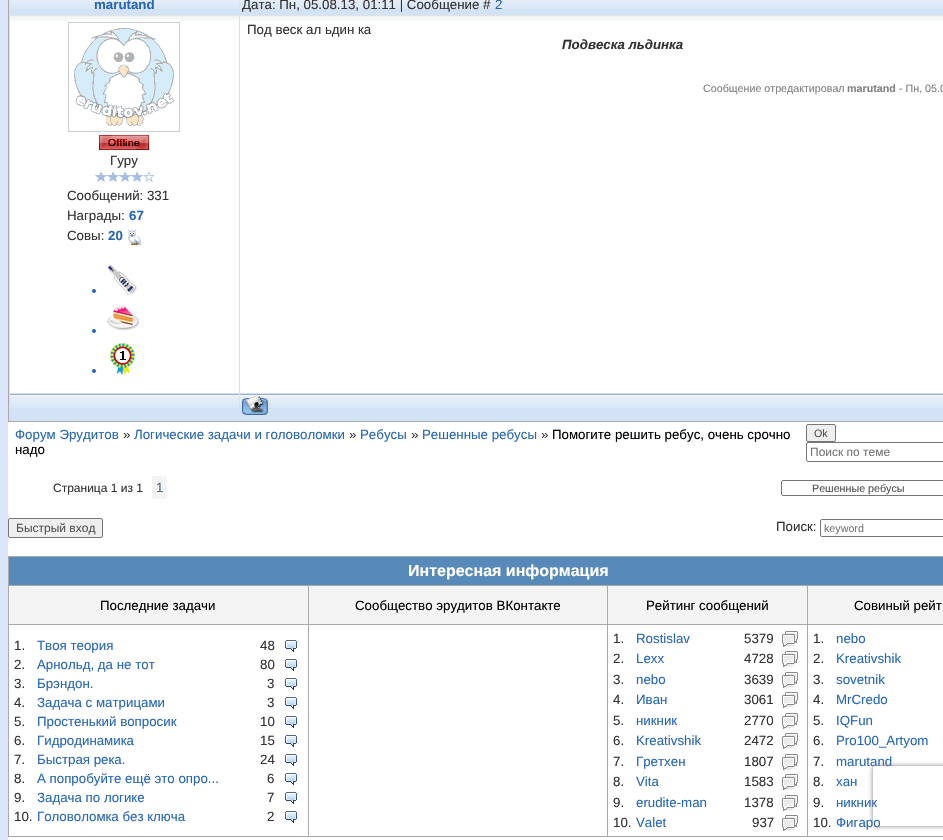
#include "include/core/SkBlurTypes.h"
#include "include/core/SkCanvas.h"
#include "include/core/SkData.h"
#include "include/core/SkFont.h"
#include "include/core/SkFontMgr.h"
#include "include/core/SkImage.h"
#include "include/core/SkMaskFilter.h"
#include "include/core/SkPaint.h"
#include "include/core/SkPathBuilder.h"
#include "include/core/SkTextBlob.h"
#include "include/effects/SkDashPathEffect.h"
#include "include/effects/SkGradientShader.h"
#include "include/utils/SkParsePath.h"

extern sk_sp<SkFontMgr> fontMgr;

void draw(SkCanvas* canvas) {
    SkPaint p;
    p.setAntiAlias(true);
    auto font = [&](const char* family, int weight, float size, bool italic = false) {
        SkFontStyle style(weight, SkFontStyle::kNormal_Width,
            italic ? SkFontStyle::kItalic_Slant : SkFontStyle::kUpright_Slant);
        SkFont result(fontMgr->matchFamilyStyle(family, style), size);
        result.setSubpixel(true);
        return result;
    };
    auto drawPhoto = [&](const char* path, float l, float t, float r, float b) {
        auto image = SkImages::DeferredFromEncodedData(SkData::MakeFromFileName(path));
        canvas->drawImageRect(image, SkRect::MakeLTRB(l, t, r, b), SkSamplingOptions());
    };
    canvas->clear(0xFFFFFFFF);
    p.setStyle(SkPaint::kStroke_Style);
    p.setStrokeWidth(8);
    p.setColor(0xFFDBE6FA);
    canvas->drawRect(SkRect::MakeLTRB(4, -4, 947, 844), p);
    p.setStyle(SkPaint::kFill_Style);
    p.setColor(0xFFAAAAAA);
    canvas->drawRect(SkRect::MakeLTRB(8, 0, 943, 422), p);
    p.setColor(0xFFD3E2F5);
    canvas->drawRect(SkRect::MakeLTRB(9, 0, 943, 421), p);
    drawPhoto("media/1.png", 10, 0, 239, 9);
    auto font1 = font("Liberation Sans", 700, 13.3f);
    p.setColor(0xFF2666B9);
    canvas->drawString("marutand", 94, 9, font1, p);
    drawPhoto("media/2.png", 240, 0, 943, 9);
    auto font2 = font("Liberation Sans", 400, 13.3f);
    p.setColor(0xFF333333);
    canvas->drawString("Дата: Пн, 05.08.13, 01:11 | Сообщение #", 242, 9, font2, p);
    p.setColor(0xFF2666B9);
    canvas->drawString("2", 495, 9, font2, p);
    p.setColor(0xFFFFFFFF);
    canvas->drawRect(SkRect::MakeLTRB(240, 21, 943, 393), p);
    drawPhoto("media/3.png", 240, 15, 943, 21);
    p.setColor(0xFF333333);
    canvas->drawString("Под веск ал ьдин ка", 247, 34, font2, p);
    auto font3 = font("Liberation Sans", 700, 13.3f, true);
    canvas->drawString("Подвеска льдинка", 562, 49, font3, p);
    auto font4 = font("Liberation Sans", 400, 10.7f);
    p.setColor(0xFF808080);
    canvas->drawString("Сообщение отредактировал", 703, 92, font4, p);
    auto font5 = font("Liberation Sans", 700, 10.7f);
    canvas->drawString("marutand", 847, 92, font5, p);
    canvas->drawString("- Пн, 05.0", 899, 92, font4, p);
    p.setColor(0xFFFFFFFF);
    canvas->drawRect(SkRect::MakeLTRB(10, 21, 239, 393), p);
    drawPhoto("media/4.png", 10, 15, 239, 21);
    p.setStyle(SkPaint::kStroke_Style);
    p.setStrokeWidth(1);
    p.setColor(0xFFCCCCCC);
    canvas->drawRect(SkRect::MakeLTRB(68.5f, 22.5f, 179.5f, 131.5f), p);
    drawPhoto("media/5.png", 74, 28, 174, 126);
    drawPhoto("media/6.png", 99, 135, 149, 150);
    p.setStyle(SkPaint::kFill_Style);
    p.setColor(0xFF333333);
    canvas->drawString("Гуру", 110, 165, font2, p);
    drawPhoto("media/7.png", 95, 171, 154, 182);
    canvas->drawString("Сообщений: 331", 67, 200, font2, p);
    canvas->drawString("Награды:", 67, 220, font2, p);
    p.setColor(0xFF2666B9);
    canvas->drawString("67", 129, 220, font1, p);
    p.setColor(0xFF333333);
    canvas->drawString("Совы:", 67, 240, font2, p);
    p.setColor(0xFF2666B9);
    canvas->drawString("20", 108, 240, font1, p);
    drawPhoto("media/8.png", 127, 230, 142, 245);
    canvas->drawCircle(94, 291, 2, p);
    drawPhoto("media/9.png", 107, 264, 137, 295);
    canvas->drawCircle(94, 331, 2, p);
    drawPhoto("media/10.png", 107, 305, 139, 331);
    canvas->drawCircle(94, 371, 2, p);
    drawPhoto("media/11.png", 110, 343, 135, 375);
    drawPhoto("media/12.png", 10, 394, 239, 408);
    drawPhoto("media/13.png", 240, 394, 943, 408);
    drawPhoto("media/14.png", 242, 396, 268, 415);
    canvas->drawString("Форум Эрудитов", 15, 439, font2, p);
    p.setColor(0xFF333333);
    canvas->drawString("»", 123, 439, font2, p);
    p.setColor(0xFF2666B9);
    canvas->drawString("Логические задачи и головоломки", 134, 439, font2, p);
    p.setColor(0xFF333333);
    canvas->drawString("»", 349, 439, font2, p);
    p.setColor(0xFF2666B9);
    canvas->drawString("Ребусы", 360, 439, font2, p);
    p.setColor(0xFF333333);
    canvas->drawString("»", 411, 439, font2, p);
    p.setColor(0xFF2666B9);
    canvas->drawString("Решенные ребусы", 422, 439, font2, p);
    p.setColor(0xFF333333);
    canvas->drawString("»", 541, 439, font2, p);
    p.setColor(0xFF000000);
    canvas->drawString("Помогите решить ребус, очень срочно", 552, 439, font2, p);
    canvas->drawString("надо", 15, 454, font2, p);
    p.setColor(0xFFEFEFEF);
    canvas->drawRoundRect(SkRect::MakeLTRB(806.5f, 424.5f, 835.5f, 441.5f), 1.5f, 1.5f, p);
    p.setStyle(SkPaint::kStroke_Style);
    p.setColor(0xFF767676);
    canvas->drawRoundRect(SkRect::MakeLTRB(806.5f, 424.5f, 835.5f, 441.5f), 1.5f, 1.5f, p);
    p.setStyle(SkPaint::kFill_Style);
    p.setColor(0xFF515151);
    canvas->drawString("Ok", 814, 437, font4, p);
    p.setStyle(SkPaint::kStroke_Style);
    p.setColor(0xFF767676);
    canvas->drawRoundRect(SkRect::MakeLTRB(806.5f, 442.5f, 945.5f, 461.5f), 1.5f, 1.5f, p);
    auto font6 = font("Liberation Sans", 400, 12);
    p.setStyle(SkPaint::kFill_Style);
    p.setColor(0xFF757575);
    canvas->drawString("Поиск по теме", 810, 456, font6, p);
    p.setColor(0xFF333333);
    canvas->drawString("Страница 1 из 1", 53, 492, font6, p);
    p.setColor(0xFFF4F4F4);
    canvas->drawRoundRect(SkRect::MakeLTRB(152, 476, 167, 499), 3, 3, p);
    p.setColor(0xFF4D6D91);
    canvas->drawString("1", 156, 492, font2, p);
    p.setStyle(SkPaint::kStroke_Style);
    p.setColor(0xFF767676);
    canvas->drawRoundRect(SkRect::MakeLTRB(781.5f, 480.5f, 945.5f, 495.5f), 1.5f, 1.5f, p);
    p.setStyle(SkPaint::kFill_Style);
    p.setColor(0xFF515151);
    canvas->drawString("Решенные ребусы", 812, 492, font4, p);
    p.setColor(0xFFEFEFEF);
    canvas->drawRoundRect(SkRect::MakeLTRB(8.5f, 518.5f, 102.5f, 537.5f), 1.5f, 1.5f, p);
    p.setStyle(SkPaint::kStroke_Style);
    p.setColor(0xFF767676);
    canvas->drawRoundRect(SkRect::MakeLTRB(8.5f, 518.5f, 102.5f, 537.5f), 1.5f, 1.5f, p);
    p.setStyle(SkPaint::kFill_Style);
    p.setColor(0xFF515151);
    canvas->drawString("Быстрый вход", 16, 532, font6, p);
    p.setColor(0xFF333333);
    canvas->drawString("Поиск:", 776, 531, font2, p);
    p.setStyle(SkPaint::kStroke_Style);
    p.setColor(0xFF767676);
    canvas->drawRoundRect(SkRect::MakeLTRB(820.5f, 519.5f, 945.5f, 536.5f), 1.5f, 1.5f, p);
    p.setStyle(SkPaint::kFill_Style);
    p.setColor(0xFF757575);
    canvas->drawString("keyword", 824, 532, font4, p);
    p.setColor(0xFFAAAAAA);
    canvas->drawRect(SkRect::MakeLTRB(8, 556, 943, 837), p);
    p.setColor(0xFF5789B9);
    canvas->drawRect(SkRect::MakeLTRB(9, 557, 943, 585), p);
    auto font7 = font("Liberation Sans", 700, 16);
    p.setColor(0xFFFFFFFF);
    canvas->drawString("Интересная информация", 408, 576, font7, p);
    p.setColor(0xFFF4F4F4);
    canvas->drawRect(SkRect::MakeLTRB(9, 586, 308, 624), p);
    p.setColor(0xFF000000);
    canvas->drawString("Последние задачи", 100, 610, font2, p);
    p.setColor(0xFFF4F4F4);
    canvas->drawRect(SkRect::MakeLTRB(309, 586, 607, 624), p);
    p.setColor(0xFF000000);
    canvas->drawString("Сообщество эрудитов ВКонтакте", 355, 610, font2, p);
    p.setColor(0xFFF4F4F4);
    canvas->drawRect(SkRect::MakeLTRB(608, 586, 807, 624), p);
    p.setColor(0xFF000000);
    canvas->drawString("Рейтинг сообщений", 646, 610, font2, p);
    p.setColor(0xFFF4F4F4);
    canvas->drawRect(SkRect::MakeLTRB(808, 586, 943, 624), p);
    p.setColor(0xFF000000);
    canvas->drawString("Совиный рейт", 854, 610, font2, p);
    p.setColor(0xFFFFFFFF);
    canvas->drawRect(SkRect::MakeLTRB(9, 625, 308, 836), p);
    p.setColor(0xFF333333);
    canvas->drawString("1.", 14, 650, font2, p);
    p.setColor(0xFF2666B9);
    canvas->drawString("Твоя теория", 37, 650, font2, p);
    p.setColor(0xFF333333);
    canvas->drawString("48", 260, 650, font2, p);
    drawPhoto("media/15.png", 285, 640, 297, 652);
    canvas->drawString("2.", 14, 669, font2, p);
    p.setColor(0xFF2666B9);
    canvas->drawString("Арнольд, да не тот", 37, 669, font2, p);
    p.setColor(0xFF333333);
    canvas->drawString("80", 260, 669, font2, p);
    drawPhoto("media/15.png", 285, 659, 297, 671);
    canvas->drawString("3.", 14, 688, font2, p);
    p.setColor(0xFF2666B9);
    canvas->drawString("Брэндон.", 37, 688, font2, p);
    p.setColor(0xFF333333);
    canvas->drawString("3", 267, 688, font2, p);
    drawPhoto("media/15.png", 285, 678, 297, 690);
    canvas->drawString("4.", 14, 707, font2, p);
    p.setColor(0xFF2666B9);
    canvas->drawString("Задача с матрицами", 37, 707, font2, p);
    p.setColor(0xFF333333);
    canvas->drawString("3", 267, 707, font2, p);
    drawPhoto("media/15.png", 285, 697, 297, 709);
    canvas->drawString("5.", 14, 726, font2, p);
    p.setColor(0xFF2666B9);
    canvas->drawString("Простенький вопросик", 37, 726, font2, p);
    p.setColor(0xFF333333);
    canvas->drawString("10", 260, 726, font2, p);
    drawPhoto("media/15.png", 285, 716, 297, 728);
    canvas->drawString("6.", 14, 745, font2, p);
    p.setColor(0xFF2666B9);
    canvas->drawString("Гидродинамика", 37, 745, font2, p);
    p.setColor(0xFF333333);
    canvas->drawString("15", 260, 745, font2, p);
    drawPhoto("media/15.png", 285, 735, 297, 747);
    canvas->drawString("7.", 14, 764, font2, p);
    p.setColor(0xFF2666B9);
    canvas->drawString("Быстрая река.", 37, 764, font2, p);
    p.setColor(0xFF333333);
    canvas->drawString("24", 260, 764, font2, p);
    drawPhoto("media/15.png", 285, 754, 297, 766);
    canvas->drawString("8.", 14, 783, font2, p);
    p.setColor(0xFF2666B9);
    canvas->drawString("А попробуйте ещё это опро...", 37, 783, font2, p);
    p.setColor(0xFF333333);
    canvas->drawString("6", 267, 783, font2, p);
    drawPhoto("media/15.png", 285, 773, 297, 785);
    canvas->drawString("9.", 14, 802, font2, p);
    p.setColor(0xFF2666B9);
    canvas->drawString("Задача по логике", 37, 802, font2, p);
    p.setColor(0xFF333333);
    canvas->drawString("7", 267, 802, font2, p);
    drawPhoto("media/15.png", 285, 792, 297, 804);
    canvas->drawString("10.", 14, 821, font2, p);
    p.setColor(0xFF2666B9);
    canvas->drawString("Головоломка без ключа", 37, 821, font2, p);
    p.setColor(0xFF333333);
    canvas->drawString("2", 267, 821, font2, p);
    drawPhoto("media/15.png", 285, 811, 297, 823);
    p.setColor(0xFFFFFFFF);
    canvas->drawRect(SkRect::MakeLTRB(309, 625, 607, 836), p);
    canvas->drawRect(SkRect::MakeLTRB(608, 625, 807, 836), p);
    p.setColor(0xFF333333);
    canvas->drawString("1.", 613, 643, font2, p);
    p.setColor(0xFF2666B9);
    canvas->drawString("Rostislav", 636, 643, font2, p);
    p.setColor(0xFF333333);
    canvas->drawString("5379", 744, 643, font2, p);
    drawPhoto("media/16.png", 782, 631, 798, 647);
    canvas->drawString("2.", 613, 663, font2, p);
    p.setColor(0xFF2666B9);
    canvas->drawString("Lexx", 636, 663, font2, p);
    p.setColor(0xFF333333);
    canvas->drawString("4728", 744, 663, font2, p);
    drawPhoto("media/16.png", 782, 651, 798, 667);
    canvas->drawString("3.", 613, 684, font2, p);
    p.setColor(0xFF2666B9);
    canvas->drawString("nebo", 636, 684, font2, p);
    p.setColor(0xFF333333);
    canvas->drawString("3639", 744, 684, font2, p);
    drawPhoto("media/16.png", 782, 672, 798, 688);
    canvas->drawString("4.", 613, 704, font2, p);
    p.setColor(0xFF2666B9);
    canvas->drawString("Иван", 636, 704, font2, p);
    p.setColor(0xFF333333);
    canvas->drawString("3061", 744, 704, font2, p);
    drawPhoto("media/16.png", 782, 692, 798, 708);
    canvas->drawString("5.", 613, 725, font2, p);
    p.setColor(0xFF2666B9);
    canvas->drawString("никник", 636, 725, font2, p);
    p.setColor(0xFF333333);
    canvas->drawString("2770", 744, 725, font2, p);
    drawPhoto("media/16.png", 782, 713, 798, 729);
    canvas->drawString("6.", 613, 745, font2, p);
    p.setColor(0xFF2666B9);
    canvas->drawString("Kreativshik", 636, 745, font2, p);
    p.setColor(0xFF333333);
    canvas->drawString("2472", 744, 745, font2, p);
    drawPhoto("media/16.png", 782, 733, 798, 749);
    canvas->drawString("7.", 613, 766, font2, p);
    p.setColor(0xFF2666B9);
    canvas->drawString("Гретхен", 636, 766, font2, p);
    p.setColor(0xFF333333);
    canvas->drawString("1807", 744, 766, font2, p);
    drawPhoto("media/16.png", 782, 754, 798, 770);
    canvas->drawString("8.", 613, 786, font2, p);
    p.setColor(0xFF2666B9);
    canvas->drawString("Vita", 636, 786, font2, p);
    p.setColor(0xFF333333);
    canvas->drawString("1583", 744, 786, font2, p);
    drawPhoto("media/16.png", 782, 774, 798, 790);
    canvas->drawString("9.", 613, 807, font2, p);
    p.setColor(0xFF2666B9);
    canvas->drawString("erudite-man", 636, 807, font2, p);
    p.setColor(0xFF333333);
    canvas->drawString("1378", 744, 807, font2, p);
    drawPhoto("media/16.png", 782, 795, 798, 811);
    canvas->drawString("10.", 613, 827, font2, p);
    p.setColor(0xFF2666B9);
    canvas->drawString("Valet", 636, 827, font2, p);
    p.setColor(0xFF333333);
    canvas->drawString("937", 752, 827, font2, p);
    drawPhoto("media/16.png", 782, 815, 798, 831);
    p.setColor(0xFFFFFFFF);
    canvas->drawRect(SkRect::MakeLTRB(808, 625, 943, 836), p);
    p.setColor(0xFF333333);
    canvas->drawString("1.", 813, 643, font2, p);
    p.setColor(0xFF2666B9);
    canvas->drawString("nebo", 836, 643, font2, p);
    p.setColor(0xFF333333);
    canvas->drawString("2.", 813, 663, font2, p);
    p.setColor(0xFF2666B9);
    canvas->drawString("Kreativshik", 836, 663, font2, p);
    p.setColor(0xFF333333);
    canvas->drawString("3.", 813, 684, font2, p);
    p.setColor(0xFF2666B9);
    canvas->drawString("sovetnik", 836, 684, font2, p);
    p.setColor(0xFF333333);
    canvas->drawString("4.", 813, 704, font2, p);
    p.setColor(0xFF2666B9);
    canvas->drawString("MrCredo", 836, 704, font2, p);
    p.setColor(0xFF333333);
    canvas->drawString("5.", 813, 725, font2, p);
    p.setColor(0xFF2666B9);
    canvas->drawString("IQFun", 836, 725, font2, p);
    p.setColor(0xFF333333);
    canvas->drawString("6.", 813, 745, font2, p);
    p.setColor(0xFF2666B9);
    canvas->drawString("Pro100_Artyom", 836, 745, font2, p);
    p.setColor(0xFF333333);
    canvas->drawString("7.", 813, 766, font2, p);
    p.setColor(0xFF2666B9);
    canvas->drawString("marutand", 836, 766, font2, p);
    p.setColor(0xFF333333);
    canvas->drawString("8.", 813, 786, font2, p);
    p.setColor(0xFF2666B9);
    canvas->drawString("хан", 836, 786, font2, p);
    p.setColor(0xFF333333);
    canvas->drawString("9.", 813, 807, font2, p);
    p.setColor(0xFF2666B9);
    canvas->drawString("никник", 836, 807, font2, p);
    p.setColor(0xFF333333);
    canvas->drawString("10.", 813, 827, font2, p);
    p.setColor(0xFF2666B9);
    canvas->drawString("Фигаро", 836, 827, font2, p);
    canvas->save();
    canvas->clipPath(SkPathBuilder(SkPathFillType::kEvenOdd).moveTo(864, 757).lineTo(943, 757).lineTo(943, 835).lineTo(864, 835).close().moveTo(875, 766).lineTo(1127, 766).cubicTo(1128, 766, 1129, 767, 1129, 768).lineTo(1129, 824).cubicTo(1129, 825, 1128, 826, 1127, 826).lineTo(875, 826).cubicTo(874, 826, 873, 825, 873, 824).lineTo(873, 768).cubicTo(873, 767, 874, 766, 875, 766).close().detach(), true);
    p.setColor(0xFF808080);
    p.setMaskFilter(SkMaskFilter::MakeBlur(kNormal_SkBlurStyle, 2.5f));
    canvas->drawRoundRect(SkRect::MakeLTRB(873, 766, 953, 826), 2, 2, p);
    p.setMaskFilter(nullptr);
    canvas->restore();
}
